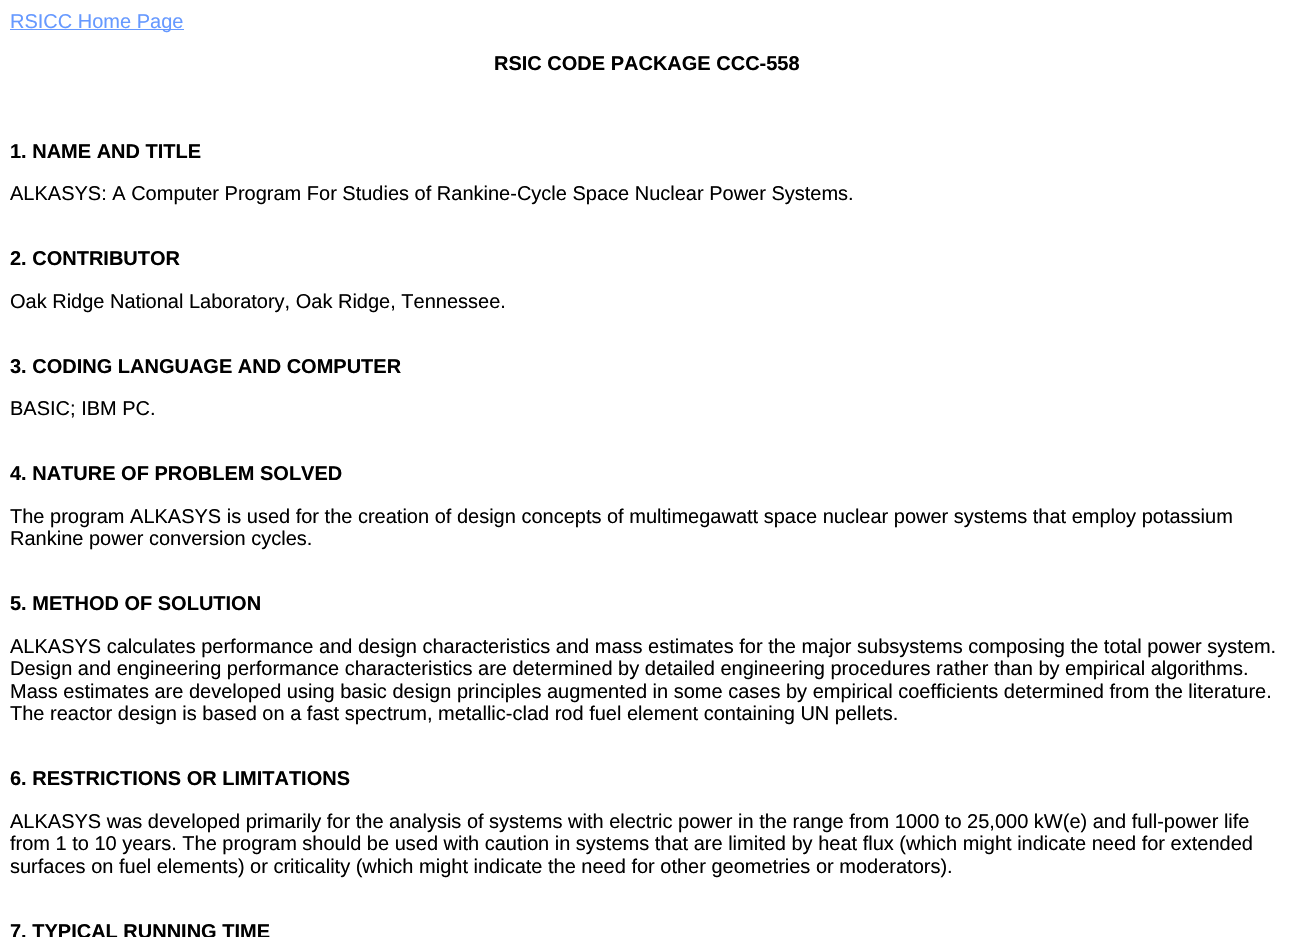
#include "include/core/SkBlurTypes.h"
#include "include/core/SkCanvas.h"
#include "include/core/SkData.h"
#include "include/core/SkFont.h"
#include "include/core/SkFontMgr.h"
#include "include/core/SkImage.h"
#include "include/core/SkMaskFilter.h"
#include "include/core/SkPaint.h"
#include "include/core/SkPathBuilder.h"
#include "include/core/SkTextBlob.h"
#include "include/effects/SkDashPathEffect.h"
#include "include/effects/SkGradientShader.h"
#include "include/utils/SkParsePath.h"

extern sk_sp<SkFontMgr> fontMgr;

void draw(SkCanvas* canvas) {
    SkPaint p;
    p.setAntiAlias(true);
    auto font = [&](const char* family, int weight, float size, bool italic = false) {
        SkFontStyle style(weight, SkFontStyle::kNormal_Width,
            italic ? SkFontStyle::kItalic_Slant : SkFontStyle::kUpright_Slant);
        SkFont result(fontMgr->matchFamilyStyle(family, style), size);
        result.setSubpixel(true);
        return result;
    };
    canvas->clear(0xFFFFFFFF);
    p.setColor(0xFF6699FF);
    canvas->drawRect(SkRect::MakeLTRB(10, 29, 184, 30), p);
    auto font1 = font("Liberation Sans", 400, 20);
    canvas->drawString("RSICC Home Page", 10, 28, font1, p);
    auto font2 = font("Liberation Sans", 700, 20);
    p.setColor(0xFF000000);
    canvas->drawString("RSIC CODE PACKAGE CCC-558", 494, 70, font2, p);
    canvas->drawString("1. NAME AND TITLE", 10, 158, font2, p);
    canvas->drawString("ALKASYS: A Computer Program For Studies of Rankine-Cycle Space Nuclear Power Systems.", 10, 200, font1, p);
    canvas->drawString("2. CONTRIBUTOR", 10, 265, font2, p);
    canvas->drawString("Oak Ridge National Laboratory, Oak Ridge, Tennessee.", 10, 308, font1, p);
    canvas->drawString("3. CODING LANGUAGE AND COMPUTER", 10, 373, font2, p);
    canvas->drawString("BASIC; IBM PC.", 10, 415, font1, p);
    canvas->drawString("4. NATURE OF PROBLEM SOLVED", 10, 480, font2, p);
    canvas->drawString("The program ALKASYS is used for the creation of design concepts of multimegawatt space nuclear power systems that employ potassium", 10, 523, font1, p);
    canvas->drawString("Rankine power conversion cycles.", 10, 545, font1, p);
    canvas->drawString("5. METHOD OF SOLUTION", 10, 610, font2, p);
    {
        const struct { const char* s; float x, y; } items[] = {
            {"ALKASYS calculates performance and design characteristics and mass estimates for the major subsystems composing the total power system.", 10, 653},
            {"Design and engineering performance characteristics are determined by detailed engineering procedures rather than by empirical algorithms.", 10, 675},
            {"Mass estimates are developed using basic design principles augmented in some cases by empirical coefficients determined from the literature.", 10, 698},
            {"The reactor design is based on a fast spectrum, metallic-clad rod fuel element containing UN pellets.", 10, 720},
        };
        for (auto [s, x, y] : items) {
            canvas->drawString(s, x, y, font1, p);
        }
    }
    canvas->drawString("6. RESTRICTIONS OR LIMITATIONS", 10, 785, font2, p);
    {
        const struct { const char* s; float x, y; } items[] = {
            {"ALKASYS was developed primarily for the analysis of systems with electric power in the range from 1000 to 25,000 kW(e) and full-power life", 10, 828},
            {"from 1 to 10 years. The program should be used with caution in systems that are limited by heat flux (which might indicate need for extended", 10, 850},
            {"surfaces on fuel elements) or criticality (which might indicate the need for other geometries or moderators).", 10, 873},
        };
        for (auto [s, x, y] : items) {
            canvas->drawString(s, x, y, font1, p);
        }
    }
    canvas->drawString("7. TYPICAL RUNNING TIME", 10, 938, font2, p);
}
